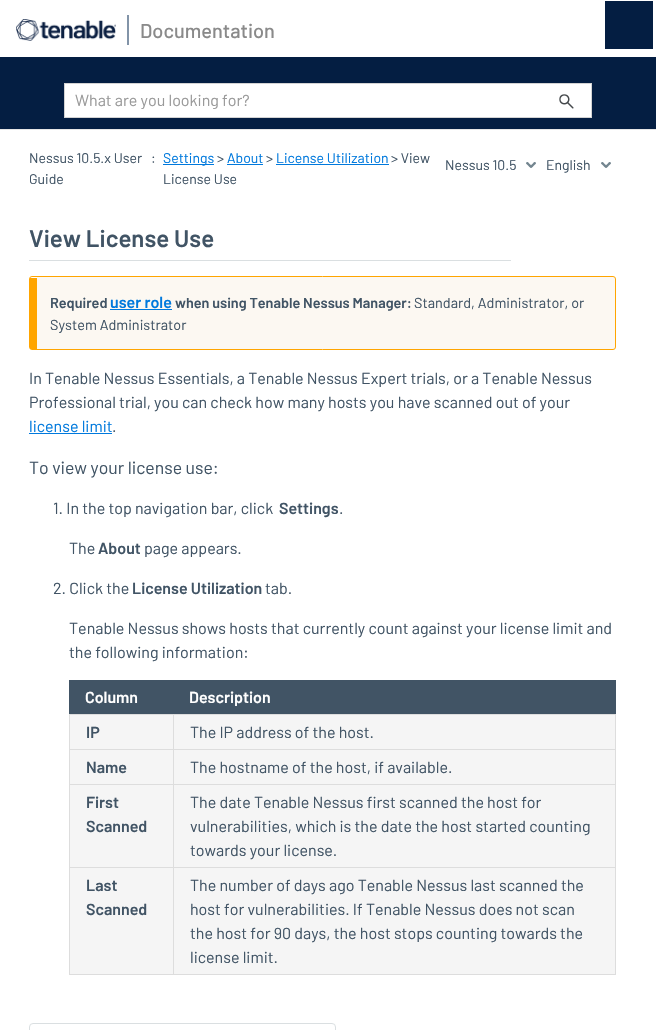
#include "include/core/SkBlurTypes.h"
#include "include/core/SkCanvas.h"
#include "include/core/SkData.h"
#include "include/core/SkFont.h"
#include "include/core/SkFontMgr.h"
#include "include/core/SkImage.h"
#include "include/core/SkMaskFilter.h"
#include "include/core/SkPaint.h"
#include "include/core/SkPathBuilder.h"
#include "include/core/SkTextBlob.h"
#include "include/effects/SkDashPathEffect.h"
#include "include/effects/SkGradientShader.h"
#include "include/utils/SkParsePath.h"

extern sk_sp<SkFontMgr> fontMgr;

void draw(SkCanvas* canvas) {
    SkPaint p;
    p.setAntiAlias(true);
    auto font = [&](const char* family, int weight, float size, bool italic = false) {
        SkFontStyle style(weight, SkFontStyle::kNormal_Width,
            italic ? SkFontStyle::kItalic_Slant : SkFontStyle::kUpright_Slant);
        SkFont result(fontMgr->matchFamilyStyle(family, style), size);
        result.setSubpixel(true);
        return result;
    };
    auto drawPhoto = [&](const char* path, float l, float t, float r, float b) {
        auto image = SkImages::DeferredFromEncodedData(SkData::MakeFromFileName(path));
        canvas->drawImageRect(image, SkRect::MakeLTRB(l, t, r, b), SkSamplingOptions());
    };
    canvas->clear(0xFFFFFFFF);
    p.setColor(0xFFE6E6E6);
    canvas->drawRect(SkRect::MakeLTRB(0, 129, 656, 130), p);
    drawPhoto("media/1.png", 16, 19, 116, 41);
    p.setColor(0xFF8294A8);
    canvas->drawRect(SkRect::MakeLTRB(127, 15, 129, 45), p);
    auto font1 = font("Barlow", 500, 20);
    p.setColor(0xFF8A8A8A);
    canvas->drawString("Documentation", 140, 38, font1, p);
    p.setColor(0xFF041E42);
    canvas->drawRect(SkRect::MakeLTRB(0, 57, 656, 129), p);
    p.setColor(0xFFFFFFFF);
    canvas->drawRect(SkRect::MakeLTRB(64.5f, 83.5f, 591.5f, 117.5f), p);
    p.setStyle(SkPaint::kStroke_Style);
    p.setStrokeWidth(1);
    p.setColor(0xFFD3D3D3);
    canvas->drawRect(SkRect::MakeLTRB(64.5f, 83.5f, 591.5f, 117.5f), p);
    canvas->save();
    canvas->clipRect(SkRect::MakeLTRB(75, 90, 490, 109));
    auto font2 = font("Barlow", 400, 16);
    p.setStyle(SkPaint::kFill_Style);
    p.setColor(0xFF999999);
    canvas->drawString("What are you looking for?", 75, 106, font2, p);
    canvas->restore();
    drawPhoto("media/2.png", 559, 94, 574, 109);
    p.setColor(0xFF041E42);
    canvas->drawRect(SkRect::MakeLTRB(605, 1, 653, 49), p);
    auto font3 = font("Barlow", 400, 14);
    p.setColor(0xFF415465);
    {
        const struct { const char* s; float x, y; } items[] = {
            {"Nessus 10.5.x User", 29, 163},
            {"Guide", 29, 184},
            {":", 151, 163},
        };
        for (auto [s, x, y] : items) {
            canvas->drawString(s, x, y, font3, p);
        }
    }
    p.setColor(0xFF0079DD);
    canvas->drawRect(SkRect::MakeLTRB(163, 164, 214, 165), p);
    canvas->drawString("Settings", 163, 163, font3, p);
    p.setColor(0xFF415465);
    canvas->drawString(">", 217, 163, font3, p);
    p.setColor(0xFF0079DD);
    canvas->drawString("About", 227, 163, font3, p);
    canvas->drawRect(SkRect::MakeLTRB(227, 164, 263, 165), p);
    p.setColor(0xFF415465);
    canvas->drawString(">", 266, 163, font3, p);
    p.setColor(0xFF0079DD);
    canvas->drawString("License Utilization", 276, 163, font3, p);
    canvas->drawRect(SkRect::MakeLTRB(276, 164, 389, 165), p);
    p.setColor(0xFF415465);
    canvas->drawString("> View", 391, 163, font3, p);
    canvas->drawString("License Use", 163, 184, font3, p);
    drawPhoto("media/3.png", 526, 162, 536, 168);
    canvas->drawString("Nessus 10.5", 445, 170, font3, p);
    drawPhoto("media/3.png", 601, 162, 611, 168);
    canvas->drawString("English", 546, 170, font3, p);
    p.setColor(0xFFDADFE1);
    canvas->drawRect(SkRect::MakeLTRB(29, 260, 511, 261), p);
    auto font4 = font("Barlow", 600, 24);
    p.setColor(0xFF415465);
    canvas->drawString("View License Use", 29, 247, font4, p);
    p.setColor(0xFFFCF8F2);
    canvas->drawPath(SkPathBuilder().moveTo(37, 277).lineTo(613, 277).cubicTo(614, 277, 615, 278, 615, 279).lineTo(615, 347).cubicTo(615, 348, 614, 349, 613, 349).lineTo(37, 349).close().detach(), p);
    p.setStyle(SkPaint::kStroke_Style);
    p.setColor(0xFFFFA500);
    canvas->drawRoundRect(SkRect::MakeLTRB(29.5f, 276.5f, 615.5f, 349.5f), 2.5f, 2.5f, p);
    p.setStyle(SkPaint::kFill_Style);
    canvas->drawRect(SkRect::MakeLTRB(30, 278, 37, 349), p);
    auto font5 = font("Barlow", 600, 14.4f);
    p.setColor(0xFF415465);
    canvas->drawString("Required", 50, 308, font5, p);
    auto font6 = font("Barlow", 600, 16);
    p.setColor(0xFF0079DD);
    canvas->drawString("user role", 110, 308, font6, p);
    canvas->drawRect(SkRect::MakeLTRB(110, 309, 172, 310), p);
    p.setColor(0xFF415465);
    canvas->drawString("when using Tenable Nessus Manager:", 175, 308, font5, p);
    auto font7 = font("Barlow", 400, 14.4f);
    canvas->drawString("Standard, Administrator, or", 414, 308, font7, p);
    canvas->drawString("System Administrator", 50, 330, font7, p);
    canvas->drawString("In Tenable Nessus Essentials, a Tenable Nessus Expert trials, or a Tenable Nessus", 29, 384, font2, p);
    canvas->drawString("Professional trial, you can check how many hosts you have scanned out of your", 29, 408, font2, p);
    p.setColor(0xFF0079DD);
    canvas->drawString("license limit", 29, 432, font2, p);
    canvas->drawRect(SkRect::MakeLTRB(29, 433, 112, 434), p);
    p.setColor(0xFF415465);
    canvas->drawString(".", 112, 432, font2, p);
    auto font8 = font("Barlow", 400, 17.6f);
    canvas->drawString("To view your license use:", 29, 474, font8, p);
    canvas->drawString("1. In the top navigation bar, click", 53, 514, font2, p);
    canvas->drawString("Settings", 279, 514, font6, p);
    canvas->drawString(".", 339, 514, font2, p);
    canvas->drawString("The", 69, 554, font2, p);
    canvas->drawString("About", 98, 554, font6, p);
    canvas->drawString("page appears.", 144, 554, font2, p);
    canvas->drawString("2. Click the", 53, 594, font2, p);
    canvas->drawString("License Utilization", 132, 594, font6, p);
    {
        const struct { const char* s; float x, y; } items[] = {
            {"tab.", 265, 594},
            {"Tenable Nessus shows hosts that currently count against your license limit and", 69, 634},
            {"the following information:", 69, 658},
        };
        for (auto [s, x, y] : items) {
            canvas->drawString(s, x, y, font2, p);
        }
    }
    canvas->drawRect(SkRect::MakeLTRB(69, 680, 616, 714), p);
    p.setColor(0xFFFFFFFF);
    canvas->drawString("Column", 85, 703, font6, p);
    canvas->drawString("Description", 189, 703, font6, p);
    {
        const struct { float l, t, r, b; SkColor color; } items[] = {
            {70, 715, 173, 749, 0xFFF5F5F5},
            {173, 714, 616, 715, 0xFFDDDDDD},
            {173, 749, 616, 750, 0xFFDDDDDD},
            {173, 784, 616, 785, 0xFFDDDDDD},
            {173, 867, 616, 868, 0xFFDDDDDD},
            {615, 867, 616, 975, 0xFFDDDDDD},
            {173, 974, 616, 975, 0xFFDDDDDD},
            {173, 867, 174, 975, 0xFFDDDDDD},
            {69, 867, 174, 868, 0xFFDDDDDD},
            {173, 784, 174, 868, 0xFFDDDDDD},
            {69, 784, 174, 785, 0xFFDDDDDD},
            {173, 749, 174, 785, 0xFFDDDDDD},
            {69, 749, 174, 750, 0xFFDDDDDD},
            {173, 714, 174, 750, 0xFFDDDDDD},
            {69, 714, 174, 715, 0xFFDDDDDD},
            {69, 974, 174, 975, 0xFFDDDDDD},
            {69, 867, 70, 975, 0xFFDDDDDD},
            {69, 784, 70, 868, 0xFFDDDDDD},
            {69, 749, 70, 785, 0xFFDDDDDD},
            {69, 714, 70, 750, 0xFFDDDDDD},
        };
        for (auto [l, t, r, b, color] : items) {
            p.setColor(color);
            canvas->drawRect(SkRect::MakeLTRB(l, t, r, b), p);
        }
    }
    p.setColor(0xFF415465);
    canvas->drawString("IP", 86, 738, font6, p);
    {
        const struct { float l, t, r, b; SkColor color; } items[] = {
            {174, 715, 615, 749, 0xFFF5F5F5},
            {615, 784, 616, 868, 0xFFDDDDDD},
            {615, 749, 616, 785, 0xFFDDDDDD},
            {615, 714, 616, 750, 0xFFDDDDDD},
        };
        for (auto [l, t, r, b, color] : items) {
            p.setColor(color);
            canvas->drawRect(SkRect::MakeLTRB(l, t, r, b), p);
        }
    }
    p.setColor(0xFF415465);
    canvas->drawString("The IP address of the host.", 190, 738, font2, p);
    p.setColor(0xFFF5F5F5);
    canvas->drawRect(SkRect::MakeLTRB(70, 750, 173, 784), p);
    p.setColor(0xFF415465);
    canvas->drawString("Name", 86, 773, font6, p);
    p.setColor(0xFFF5F5F5);
    canvas->drawRect(SkRect::MakeLTRB(174, 750, 615, 784), p);
    p.setColor(0xFF415465);
    canvas->drawString("The hostname of the host, if available.", 190, 773, font2, p);
    p.setColor(0xFFF5F5F5);
    canvas->drawRect(SkRect::MakeLTRB(70, 785, 173, 867), p);
    p.setColor(0xFF415465);
    canvas->drawString("First", 86, 808, font6, p);
    canvas->drawString("Scanned", 86, 832, font6, p);
    p.setColor(0xFFF5F5F5);
    canvas->drawRect(SkRect::MakeLTRB(174, 785, 615, 867), p);
    p.setColor(0xFF415465);
    {
        const struct { const char* s; float x, y; } items[] = {
            {"The date Tenable Nessus first scanned the host for", 190, 808},
            {"vulnerabilities, which is the date the host started counting", 190, 832},
            {"towards your license.", 190, 856},
        };
        for (auto [s, x, y] : items) {
            canvas->drawString(s, x, y, font2, p);
        }
    }
    p.setColor(0xFFF5F5F5);
    canvas->drawRect(SkRect::MakeLTRB(70, 868, 173, 974), p);
    p.setColor(0xFF415465);
    canvas->drawString("Last", 86, 891, font6, p);
    canvas->drawString("Scanned", 86, 915, font6, p);
    p.setColor(0xFFF5F5F5);
    canvas->drawRect(SkRect::MakeLTRB(174, 868, 615, 974), p);
    p.setColor(0xFF415465);
    {
        const struct { const char* s; float x, y; } items[] = {
            {"The number of days ago Tenable Nessus last scanned the", 190, 891},
            {"host for vulnerabilities. If Tenable Nessus does not scan", 190, 915},
            {"the host for 90 days, the host stops counting towards the", 190, 939},
            {"license limit.", 190, 963},
        };
        for (auto [s, x, y] : items) {
            canvas->drawString(s, x, y, font2, p);
        }
    }
    p.setStyle(SkPaint::kStroke_Style);
    p.setColor(0xFFDADFE1);
    canvas->drawRoundRect(SkRect::MakeLTRB(29.5f, 1023.5f, 335.5f, 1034.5f), 3.5f, 3.5f, p);
}
